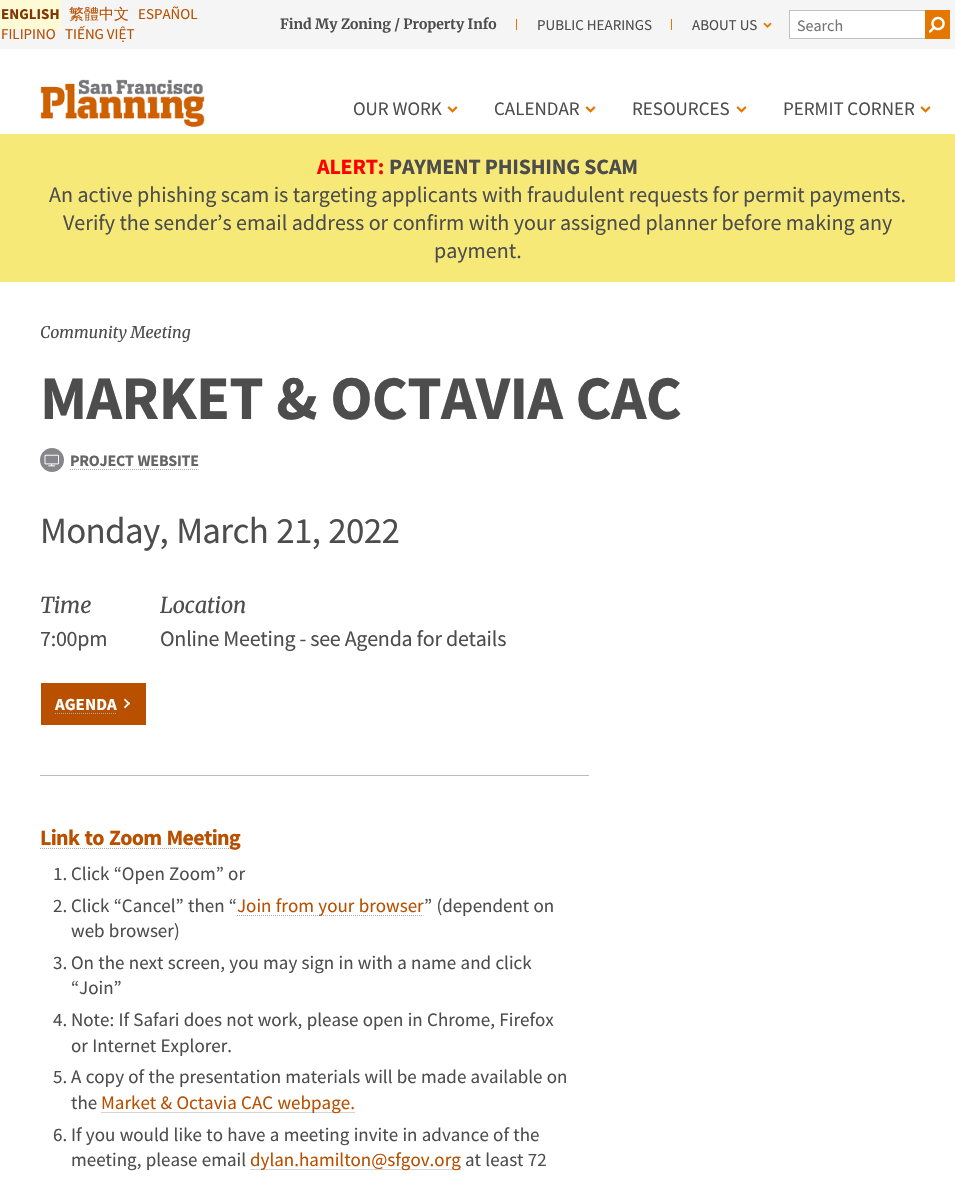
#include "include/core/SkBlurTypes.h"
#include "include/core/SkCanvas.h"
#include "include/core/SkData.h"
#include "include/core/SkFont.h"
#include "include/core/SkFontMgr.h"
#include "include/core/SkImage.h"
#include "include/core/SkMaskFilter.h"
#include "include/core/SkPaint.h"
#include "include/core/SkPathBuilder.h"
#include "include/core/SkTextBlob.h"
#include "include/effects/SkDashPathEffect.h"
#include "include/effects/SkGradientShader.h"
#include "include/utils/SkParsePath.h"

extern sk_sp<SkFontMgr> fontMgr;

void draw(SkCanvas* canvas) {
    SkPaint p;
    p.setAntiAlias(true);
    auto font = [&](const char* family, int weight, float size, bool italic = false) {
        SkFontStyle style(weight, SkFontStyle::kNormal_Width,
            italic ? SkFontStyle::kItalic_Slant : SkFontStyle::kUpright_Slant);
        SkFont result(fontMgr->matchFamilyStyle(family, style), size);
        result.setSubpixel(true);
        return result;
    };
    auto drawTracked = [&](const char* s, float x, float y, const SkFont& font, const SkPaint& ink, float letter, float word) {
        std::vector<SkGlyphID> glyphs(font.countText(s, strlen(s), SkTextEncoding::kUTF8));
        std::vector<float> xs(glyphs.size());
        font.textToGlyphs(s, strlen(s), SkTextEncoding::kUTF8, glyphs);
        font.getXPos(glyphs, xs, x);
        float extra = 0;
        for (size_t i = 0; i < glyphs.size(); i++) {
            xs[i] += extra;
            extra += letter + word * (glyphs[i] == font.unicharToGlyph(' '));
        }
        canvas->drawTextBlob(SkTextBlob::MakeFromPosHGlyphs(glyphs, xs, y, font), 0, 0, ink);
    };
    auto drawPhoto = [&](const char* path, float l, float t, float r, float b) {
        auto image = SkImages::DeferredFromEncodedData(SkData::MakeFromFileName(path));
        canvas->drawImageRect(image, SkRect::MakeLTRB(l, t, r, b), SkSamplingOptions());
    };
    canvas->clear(0xFFFFFFFF);
    p.setColor(0xFFF5F5F5);
    canvas->drawRect(SkRect::MakeLTRB(0, 0, 955, 49), p);
    p.setColor(0xFFFFFAD6);
    canvas->drawRect(SkRect::MakeLTRB(0, 0, 61, 30), p);
    auto font1 = font("Source Sans Pro", 700, 15);
    p.setColor(0xFF803700);
    canvas->drawString("ENGLISH", 1, 19, font1, p);
    auto font2 = font("WenQuanYi Zen Hei", 500, 15);
    p.setColor(0xFFB85000);
    canvas->drawString("繁體中文", 69, 19, font2, p);
    auto font3 = font("Source Sans Pro", 400, 15);
    {
        const struct { const char* s; float x, y; } items[] = {
            {"ESPAÑOL", 138, 19},
            {"FILIPINO", 1, 39},
            {"TIẾNG VIỆT", 65, 39},
        };
        for (auto [s, x, y] : items) {
            canvas->drawString(s, x, y, font3, p);
        }
    }
    auto font4 = font("Merriweather", 700, 14);
    p.setColor(0xFF4D4D4D);
    canvas->drawString("Find My Zoning / Property Info", 280, 29, font4, p);
    p.setColor(0xFFE37700);
    canvas->drawRect(SkRect::MakeLTRB(516, 19, 517, 30), p);
    p.setColor(0xFF4D4D4D);
    canvas->drawString("PUBLIC HEARINGS", 537, 30, font3, p);
    p.setColor(0xFFE37700);
    canvas->drawRect(SkRect::MakeLTRB(671, 19, 672, 30), p);
    p.setColor(0xFF4D4D4D);
    canvas->drawString("ABOUT US", 692, 30, font3, p);
    drawPhoto("media/1.png", 763, 22, 772, 28);
    {
        const struct { float l, t, r, b; SkColor color; } items[] = {
            {790, 11, 925, 38, 0xFFFFFFFF},
            {789, 10, 925, 11, 0xFFC2C2C2},
            {789, 38, 925, 39, 0xFFC2C2C2},
            {789, 10, 790, 39, 0xFFC2C2C2},
        };
        for (auto [l, t, r, b, color] : items) {
            p.setColor(color);
            canvas->drawRect(SkRect::MakeLTRB(l, t, r, b), p);
        }
    }
    auto font5 = font("Source Sans Pro", 400, 16);
    p.setColor(0xFF757575);
    canvas->drawString("Search", 797, 31, font5, p);
    p.setColor(0xFFE37700);
    canvas->drawRect(SkRect::MakeLTRB(925, 10, 950, 39), p);
    drawPhoto("media/2.png", 929, 16, 945, 33);
    drawPhoto("media/3.png", 40, 79, 205, 127);
    auto font6 = font("Source Sans Pro", 400, 19);
    p.setColor(0xFF4D4D4D);
    canvas->drawString("OUR WORK", 353, 115, font6, p);
    drawPhoto("media/4.png", 447, 106, 458, 113);
    canvas->drawString("CALENDAR", 494, 115, font6, p);
    drawPhoto("media/4.png", 585, 106, 596, 113);
    canvas->drawString("RESOURCES", 632, 115, font6, p);
    drawPhoto("media/4.png", 736, 106, 747, 113);
    canvas->drawString("PERMIT CORNER", 783, 115, font6, p);
    drawPhoto("media/4.png", 920, 106, 931, 113);
    p.setColor(0xFFF6E978);
    canvas->drawRect(SkRect::MakeLTRB(0, 134, 955, 282), p);
    auto font7 = font("Source Sans Pro", 700, 22);
    p.setColor(0xFFFF0000);
    drawTracked("ALERT:", 317, 174, font7, p, -0.2f, 0);
    p.setColor(0xFF4D4D4D);
    drawTracked("PAYMENT PHISHING SCAM", 389, 174, font7, p, -0.2f, 0);
    auto font8 = font("Source Sans Pro", 400, 22);
    {
        const struct { const char* s; float x, y; } items[] = {
            {"An active phishing scam is targeting applicants with fraudulent requests for permit payments.", 49, 202},
            {"Verify the sender’s email address or confirm with your assigned planner before making any", 63, 230},
            {"payment.", 434, 258},
        };
        for (auto [s, x, y] : items) {
            canvas->drawString(s, x, y, font8, p);
        }
    }
    auto font9 = font("Merriweather", 400, 16, true);
    canvas->drawString("Community Meeting", 40, 338, font9, p);
    auto font10 = font("Source Sans Pro", 700, 62);
    drawTracked("MARKET & OCTAVIA CAC", 40, 419, font10, p, -0.7f, 1.5f);
    drawPhoto("media/5.png", 40, 448, 64, 472);
    auto font11 = font("Source Sans Pro", 700, 16);
    p.setColor(0xFF666666);
    drawTracked("PROJECT WEBSITE", 70, 466, font11, p, -0.25f, 1);
    p.setStyle(SkPaint::kStroke_Style);
    p.setStrokeWidth(1);
    p.setColor(0xFFAAAAAA);
    p.setPathEffect(SkDashPathEffect::Make({{1, 1}}, 0));
    canvas->drawPath(SkPathBuilder().moveTo(70, 469.5f).lineTo(198.5f, 469.5f).detach(), p);
    p.setPathEffect(nullptr);
    auto font12 = font("Source Sans Pro", 400, 37);
    p.setStyle(SkPaint::kFill_Style);
    p.setColor(0xFF4D4D4D);
    drawTracked("Monday, March 21, 2022", 40, 543, font12, p, -0.7f, 1.5f);
    auto font13 = font("Merriweather", 400, 22, true);
    drawTracked("Time", 40, 613, font13, p, -0.25f, 0);
    drawTracked("7:00pm", 40, 646, font8, p, -0.25f, 0);
    drawTracked("Location", 160, 613, font13, p, -0.25f, 0);
    drawTracked("Online Meeting - see Agenda for details", 160, 646, font8, p, -0.25f, 0);
    p.setColor(0xFFB85000);
    canvas->drawRect(SkRect::MakeLTRB(41, 683, 146, 725), p);
    auto font14 = font("Source Sans Pro", 700, 17);
    p.setColor(0xFFFFFFFF);
    canvas->drawString("AGENDA", 55, 710, font14, p);
    p.setStyle(SkPaint::kStroke_Style);
    p.setColor(0xFFAAAAAA);
    p.setPathEffect(SkDashPathEffect::Make({{1, 1}}, 0));
    canvas->drawPath(SkPathBuilder().moveTo(55, 713.5f).lineTo(117, 713.5f).detach(), p);
    p.setPathEffect(nullptr);
    p.setStyle(SkPaint::kFill_Style);
    p.setColor(0xFFFFFFFF);
    canvas->drawPath(SkPathBuilder().moveTo(125, 698.5f).lineTo(130, 703.5f).lineTo(129, 705).lineTo(124, 700).close().detach(), p);
    canvas->drawPath(SkPathBuilder().moveTo(129, 702).lineTo(130, 703.5f).lineTo(125, 708.5f).lineTo(124, 707).close().detach(), p);
    p.setColor(0xFFBBBBBB);
    canvas->drawRect(SkRect::MakeLTRB(40, 775, 589, 776), p);
    p.setStyle(SkPaint::kStroke_Style);
    p.setColor(0xFFAAAAAA);
    p.setPathEffect(SkDashPathEffect::Make({{1, 1}}, 0));
    canvas->drawPath(SkPathBuilder().moveTo(40, 848.5f).lineTo(240, 848.5f).detach(), p);
    p.setPathEffect(nullptr);
    p.setStyle(SkPaint::kFill_Style);
    p.setColor(0xFFB85000);
    drawTracked("Link to Zoom Meeting", 40, 845, font7, p, -0.7f, 1.5f);
    p.setColor(0xFF4D4D4D);
    canvas->drawString("1.", 53, 880, font6, p);
    drawTracked("Click “Open Zoom” or", 71, 880, font6, p, 0, 0.5f);
    canvas->drawString("2.", 53, 912, font6, p);
    drawTracked("Click “Cancel” then “", 71, 912, font6, p, 0, 0.5f);
    p.setStyle(SkPaint::kStroke_Style);
    p.setColor(0xFFAAAAAA);
    p.setPathEffect(SkDashPathEffect::Make({{1, 1}}, 0));
    canvas->drawPath(SkPathBuilder().moveTo(237, 915.5f).lineTo(423.5f, 915.5f).detach(), p);
    p.setPathEffect(nullptr);
    p.setStyle(SkPaint::kFill_Style);
    p.setColor(0xFFB85000);
    drawTracked("Join from your browser", 237, 912, font6, p, 0, 0.5f);
    p.setColor(0xFF4D4D4D);
    drawTracked("” (dependent on", 424, 912, font6, p, 0, 0.5f);
    drawTracked("web browser)", 71, 937, font6, p, 0, 0.5f);
    canvas->drawString("3.", 53, 969, font6, p);
    drawTracked("On the next screen, you may sign in with a name and click", 71, 969, font6, p, 0, 0.5f);
    canvas->drawString("“Join”", 71, 994, font6, p);
    canvas->drawString("4.", 53, 1026, font6, p);
    drawTracked("Note: If Safari does not work, please open in Chrome, Firefox", 71, 1026, font6, p, 0, 0.5f);
    drawTracked("or Internet Explorer.", 71, 1052, font6, p, 0, 0.5f);
    canvas->drawString("5.", 53, 1083, font6, p);
    drawTracked("A copy of the presentation materials will be made available on", 71, 1083, font6, p, 0, 0.5f);
    canvas->drawString("the", 71, 1109, font6, p);
    p.setStyle(SkPaint::kStroke_Style);
    p.setColor(0xFFAAAAAA);
    p.setPathEffect(SkDashPathEffect::Make({{1, 1}}, 0));
    canvas->drawPath(SkPathBuilder().moveTo(101.5f, 1112.5f).lineTo(355.5f, 1112.5f).detach(), p);
    p.setPathEffect(nullptr);
    p.setStyle(SkPaint::kFill_Style);
    p.setColor(0xFFB85000);
    drawTracked("Market & Octavia CAC webpage.", 101, 1109, font6, p, 0, 0.5f);
    p.setColor(0xFF4D4D4D);
    canvas->drawString("6.", 53, 1141, font6, p);
    drawTracked("If you would like to have a meeting invite in advance of the", 71, 1141, font6, p, 0, 0.5f);
    drawTracked("meeting, please email", 71, 1166, font6, p, 0, 0.5f);
    p.setStyle(SkPaint::kStroke_Style);
    p.setColor(0xFFAAAAAA);
    p.setPathEffect(SkDashPathEffect::Make({{1, 1}}, 0));
    canvas->drawPath(SkPathBuilder().moveTo(250.5f, 1169.5f).lineTo(461, 1169.5f).detach(), p);
    p.setPathEffect(nullptr);
    p.setStyle(SkPaint::kFill_Style);
    p.setColor(0xFFB85000);
    canvas->drawString("dylan.hamilton@sfgov.org", 250, 1166, font6, p);
    p.setColor(0xFF4D4D4D);
    drawTracked("at least 72", 465, 1166, font6, p, 0, 0.5f);
}
